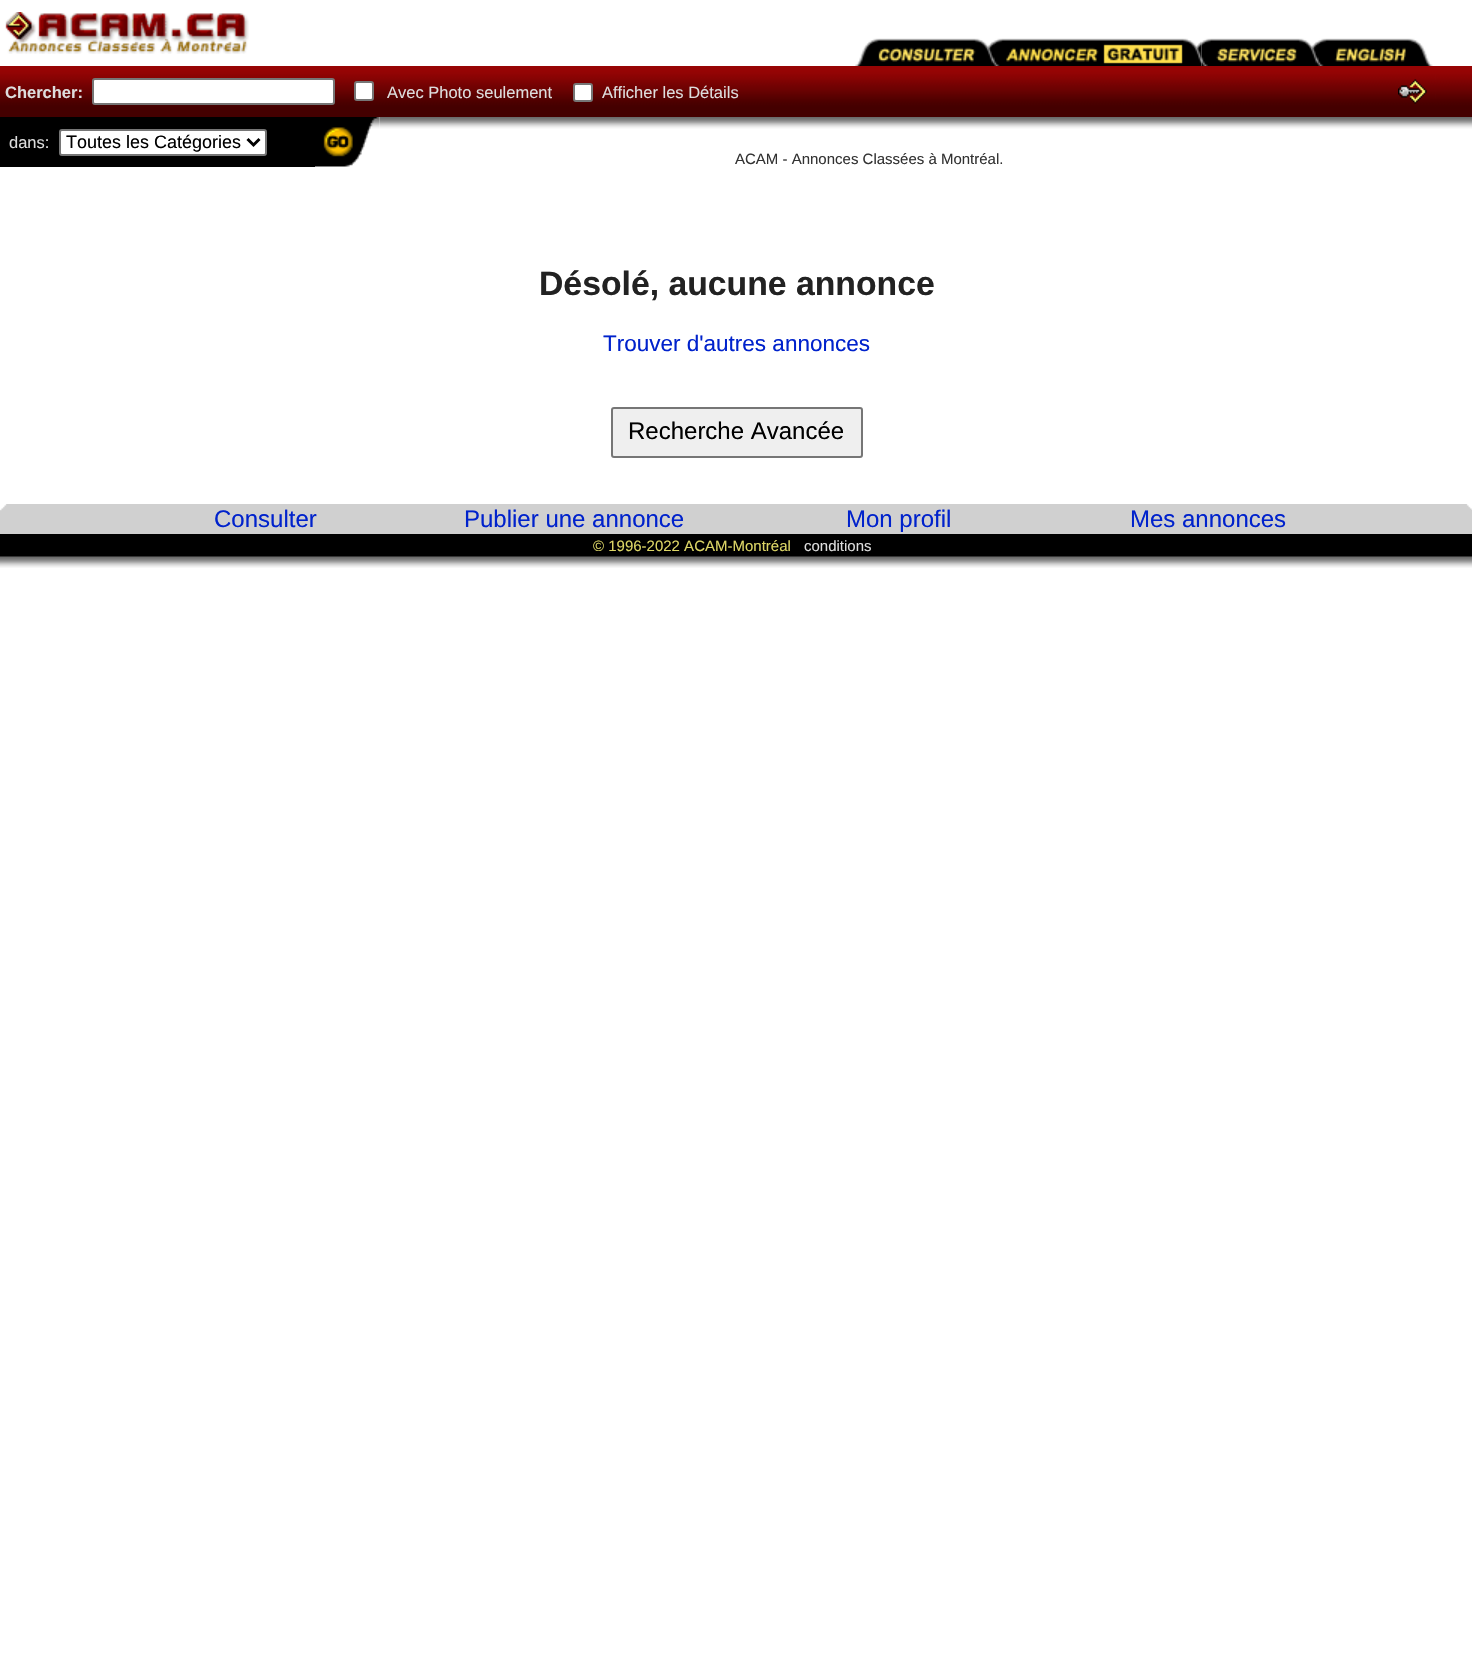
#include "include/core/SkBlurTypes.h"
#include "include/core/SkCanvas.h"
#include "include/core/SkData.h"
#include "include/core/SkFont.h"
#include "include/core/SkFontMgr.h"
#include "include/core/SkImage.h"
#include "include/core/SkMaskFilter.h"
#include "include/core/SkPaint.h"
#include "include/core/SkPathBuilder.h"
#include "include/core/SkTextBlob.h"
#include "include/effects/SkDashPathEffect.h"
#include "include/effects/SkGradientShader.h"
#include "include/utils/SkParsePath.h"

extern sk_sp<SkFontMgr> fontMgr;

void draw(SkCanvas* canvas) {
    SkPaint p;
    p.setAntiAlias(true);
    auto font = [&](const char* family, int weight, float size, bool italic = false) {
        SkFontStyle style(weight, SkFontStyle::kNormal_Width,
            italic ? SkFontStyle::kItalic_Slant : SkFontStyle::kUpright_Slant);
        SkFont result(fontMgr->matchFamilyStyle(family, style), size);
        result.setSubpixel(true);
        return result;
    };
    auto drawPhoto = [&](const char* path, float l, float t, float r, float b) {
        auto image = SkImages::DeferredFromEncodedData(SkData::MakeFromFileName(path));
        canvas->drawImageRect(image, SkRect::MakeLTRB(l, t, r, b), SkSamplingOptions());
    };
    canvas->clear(0xFFFFFFFF);
    drawPhoto("media/1.png", 5, 12, 249, 54);
    drawPhoto("media/2.png", 855, 38, 993, 66);
    drawPhoto("media/3.png", 993, 38, 1202, 66);
    drawPhoto("media/4.png", 1201, 38, 1317, 66);
    drawPhoto("media/5.png", 1317, 38, 1433, 66);
    drawPhoto("media/6.png", 0, 66, 1436, 117);
    auto font1 = font("Liberation Sans", 700, 16.5f);
    p.setColor(0xFFDDDDDD);
    canvas->drawString("Chercher:", 5, 98, font1, p);
    p.setColor(0xFFFFFFFF);
    canvas->drawRoundRect(SkRect::MakeLTRB(93, 79, 334, 104), 2, 2, p);
    p.setStyle(SkPaint::kStroke_Style);
    p.setStrokeWidth(2);
    p.setColor(0xFF767676);
    canvas->drawRoundRect(SkRect::MakeLTRB(93, 79, 334, 104), 2, 2, p);
    p.setStyle(SkPaint::kFill_Style);
    p.setColor(0xFFFFFFFF);
    canvas->drawRoundRect(SkRect::MakeLTRB(355, 82, 373, 100), 2, 2, p);
    p.setStyle(SkPaint::kStroke_Style);
    p.setColor(0xFF767676);
    canvas->drawRoundRect(SkRect::MakeLTRB(355, 82, 373, 100), 2, 2, p);
    auto font2 = font("Liberation Sans", 400, 16.5f);
    p.setStyle(SkPaint::kFill_Style);
    p.setColor(0xFFDDDDDD);
    canvas->drawString("Avec Photo seulement", 387, 98, font2, p);
    p.setColor(0xFFFFFFFF);
    canvas->drawRoundRect(SkRect::MakeLTRB(574, 84, 592, 101), 2, 2, p);
    p.setStyle(SkPaint::kStroke_Style);
    p.setColor(0xFF767676);
    canvas->drawRoundRect(SkRect::MakeLTRB(574, 84, 592, 101), 2, 2, p);
    p.setStyle(SkPaint::kFill_Style);
    p.setColor(0xFFDDDDDD);
    canvas->drawString("Afficher les Détails", 602, 98, font2, p);
    drawPhoto("media/7.png", 1394, 66, 1436, 117);
    drawPhoto("media/8.png", 1398, 79, 1427, 104);
    drawPhoto("media/9.png", 1435, 66, 1472, 117);
    drawPhoto("media/10.png", 368, 117, 380, 129);
    drawPhoto("media/11.png", 315, 117, 379, 167);
    drawPhoto("media/12.png", 1452, 117, 1472, 129);
    p.setColor(0xFF000000);
    canvas->drawRect(SkRect::MakeLTRB(0, 117, 315, 167), p);
    p.setColor(0xFFDDDDDD);
    canvas->drawString("dans:", 9, 148, font2, p);
    p.setColor(0xFFFFFFFF);
    canvas->drawRoundRect(SkRect::MakeLTRB(60, 130, 266, 155), 2, 2, p);
    p.setStyle(SkPaint::kStroke_Style);
    p.setColor(0xFF767676);
    canvas->drawRoundRect(SkRect::MakeLTRB(60, 130, 266, 155), 2, 2, p);
    p.setStrokeWidth(3);
    p.setColor(0xFF000000);
    canvas->drawPath(SkPathBuilder().moveTo(247.5f, 139).lineTo(253.5f, 145).lineTo(259.5f, 139).detach(), p);
    auto font3 = font("Liberation Sans", 400, 18);
    p.setStyle(SkPaint::kFill_Style);
    canvas->drawString("Toutes les Catégories", 66, 148, font3, p);
    drawPhoto("media/13.png", 379, 117, 1452, 129);
    auto font4 = font("Liberation Sans", 400, 15);
    p.setColor(0xFF333333);
    canvas->drawString("ACAM - Annonces Classées à Montréal.", 735, 164, font4, p);
    auto font5 = font("Liberation Sans", 700, 33.75f);
    p.setColor(0xFF222222);
    canvas->drawString("Désolé, aucune annonce", 539, 295, font5, p);
    auto font6 = font("Liberation Sans", 400, 22.5f);
    p.setColor(0xFF0022CC);
    canvas->drawString("Trouver d'autres annonces", 603, 351, font6, p);
    p.setColor(0xFFEFEFEF);
    canvas->drawRoundRect(SkRect::MakeLTRB(612, 408, 862, 457), 2, 2, p);
    p.setStyle(SkPaint::kStroke_Style);
    p.setStrokeWidth(2);
    p.setColor(0xFF767676);
    canvas->drawRoundRect(SkRect::MakeLTRB(612, 408, 862, 457), 2, 2, p);
    auto font7 = font("Liberation Sans", 400, 24);
    p.setStyle(SkPaint::kFill_Style);
    p.setColor(0xFF000000);
    canvas->drawString("Recherche Avancée", 628, 439, font7, p);
    p.setColor(0xFFD0D0D0);
    canvas->drawRect(SkRect::MakeLTRB(0, 504, 1472, 534), p);
    drawPhoto("media/14.png", 0, 504, 7, 511);
    drawPhoto("media/15.png", 1466, 504, 1472, 510);
    p.setColor(0xFF0022CC);
    {
        const struct { const char* s; float x, y; } items[] = {
            {"Consulter", 214, 527},
            {"Publier une annonce", 464, 527},
            {"Mon profil", 846, 527},
            {"Mes annonces", 1130, 527},
        };
        for (auto [s, x, y] : items) {
            canvas->drawString(s, x, y, font7, p);
        }
    }
    p.setColor(0xFF000000);
    canvas->drawRect(SkRect::MakeLTRB(0, 534, 1472, 557), p);
    p.setColor(0xFFDDD666);
    canvas->drawString("© 1996-2022 ACAM-Montréal", 593, 551, font4, p);
    p.setColor(0xFFDDDDDD);
    canvas->drawString("conditions", 804, 551, font4, p);
    drawPhoto("media/16.png", 0, 556, 1472, 568);
}
